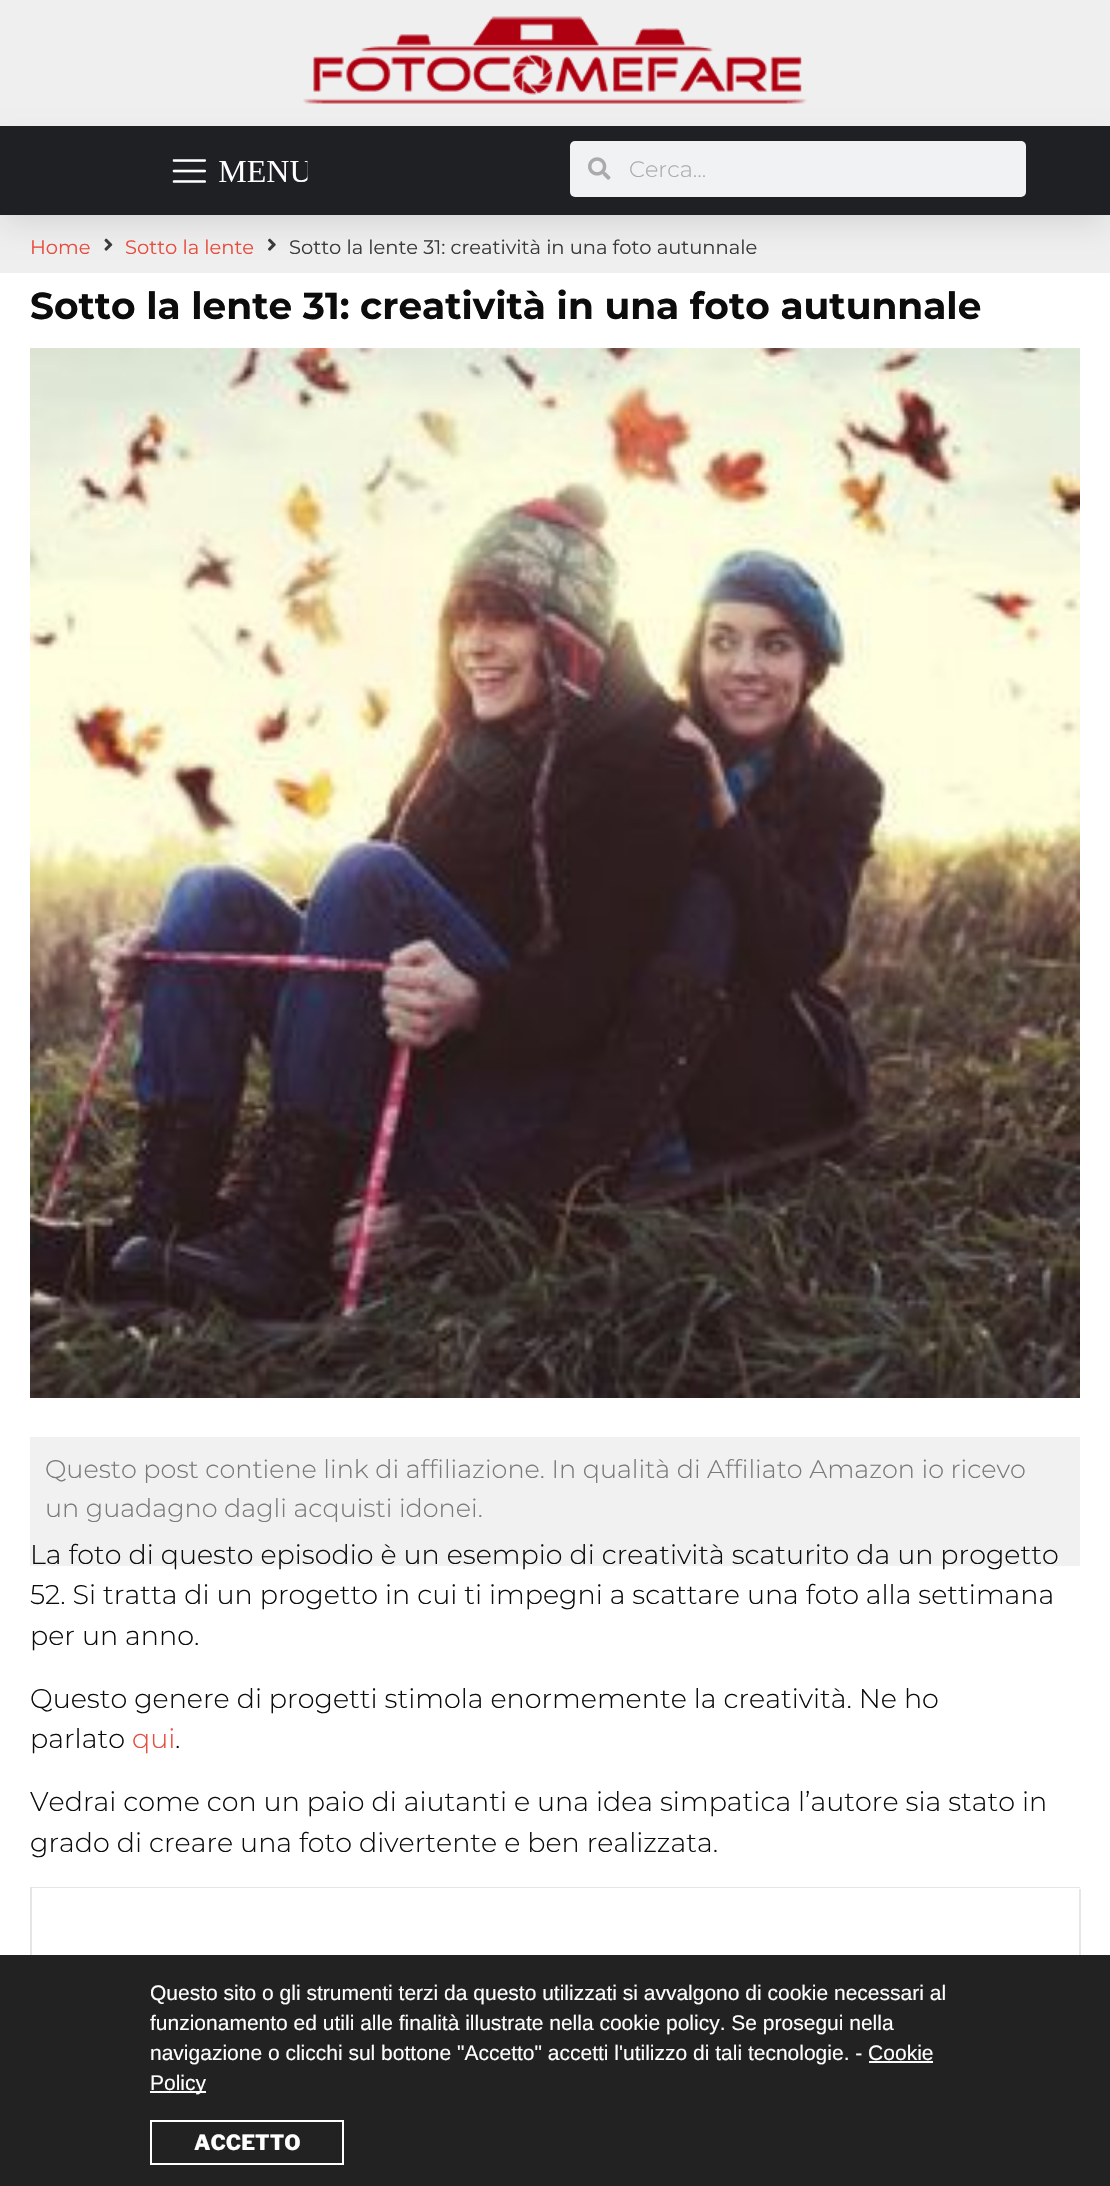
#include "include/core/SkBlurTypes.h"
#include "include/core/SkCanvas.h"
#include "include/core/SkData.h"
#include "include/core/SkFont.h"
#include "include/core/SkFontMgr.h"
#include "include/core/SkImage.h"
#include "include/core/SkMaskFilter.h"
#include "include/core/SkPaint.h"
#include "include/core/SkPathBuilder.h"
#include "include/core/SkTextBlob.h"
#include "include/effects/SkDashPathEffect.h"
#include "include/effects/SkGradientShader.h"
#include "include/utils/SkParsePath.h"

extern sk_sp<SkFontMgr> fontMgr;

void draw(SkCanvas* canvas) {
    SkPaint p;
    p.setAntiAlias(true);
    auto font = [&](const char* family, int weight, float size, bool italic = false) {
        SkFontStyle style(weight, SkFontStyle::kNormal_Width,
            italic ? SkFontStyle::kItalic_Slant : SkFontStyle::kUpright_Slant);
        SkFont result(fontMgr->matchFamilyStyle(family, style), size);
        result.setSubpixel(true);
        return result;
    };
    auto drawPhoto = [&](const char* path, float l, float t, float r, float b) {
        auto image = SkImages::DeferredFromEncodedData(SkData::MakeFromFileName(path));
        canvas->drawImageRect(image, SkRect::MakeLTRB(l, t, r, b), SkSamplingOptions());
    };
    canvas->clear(0xFFEFEFEF);
    drawPhoto("media/1.png", 303, 16, 807, 104);
    p.setColor(0x1A000000);
    p.setMaskFilter(SkMaskFilter::MakeBlur(kNormal_SkBlurStyle, 15));
    canvas->drawRect(SkRect::MakeLTRB(3, 143, 1107, 225), p);
    p.setMaskFilter(nullptr);
    p.setColor(0xFF1F2024);
    canvas->drawRect(SkRect::MakeLTRB(0, 126, 1110, 215), p);
    drawPhoto("media/2.png", 172, 159, 308, 183);
    p.setColor(0xFFF1F2F3);
    canvas->drawRoundRect(SkRect::MakeLTRB(570, 141, 1026, 197), 5, 5, p);
    drawPhoto("media/3.png", 588, 157, 611, 180);
    auto font1 = font("Montserrat", 300, 22.5f);
    p.setColor(0xFFAAAAAA);
    canvas->drawString("Cerca...", 629, 177, font1, p);
    auto font2 = font("Montserrat", 400, 19.5f);
    p.setColor(0xFFE74C3C);
    canvas->drawString("Home", 30, 254, font2, p);
    drawPhoto("media/4.png", 104, 238, 113, 251);
    canvas->drawString("Sotto la lente", 125, 254, font2, p);
    drawPhoto("media/5.png", 268, 238, 276, 251);
    p.setColor(0xFF3A3A3A);
    canvas->drawString("Sotto la lente 31: creatività in una foto autunnale", 289, 254, font2, p);
    p.setColor(0xFFFFFFFF);
    canvas->drawRect(SkRect::MakeLTRB(0, 273, 1110, 1955), p);
    auto font3 = font("Montserrat", 700, 37.5f);
    p.setColor(0xFF0C0C0C);
    canvas->drawString("Sotto la lente 31: creatività in una foto autunnale", 30, 319, font3, p);
    drawPhoto("media/6.png", 30, 348, 1080, 1398);
    p.setColor(0xFFF1F1F1);
    canvas->drawRect(SkRect::MakeLTRB(30, 1437, 1080, 1566), p);
    auto font4 = font("Montserrat", 300, 25.5f);
    p.setColor(0xFF7A7A7A);
    canvas->drawString("Questo post contiene link di affiliazione. In qualità di Affiliato Amazon io ricevo", 45, 1478, font4, p);
    canvas->drawString("un guadagno dagli acquisti idonei.", 45, 1517, font4, p);
    auto font5 = font("Montserrat", 300, 27);
    p.setColor(0xFF0C0C0C);
    {
        const struct { const char* s; float x, y; } items[] = {
            {"La foto di questo episodio è un esempio di creatività scaturito da un progetto", 30, 1564},
            {"52. Si tratta di un progetto in cui ti impegni a scattare una foto alla settimana", 30, 1604},
            {"per un anno.", 30, 1645},
            {"Questo genere di progetti stimola enormemente la creatività. Ne ho", 30, 1708},
            {"parlato", 30, 1748},
        };
        for (auto [s, x, y] : items) {
            canvas->drawString(s, x, y, font5, p);
        }
    }
    p.setColor(0xFFE74C3C);
    canvas->drawString("qui", 132, 1748, font5, p);
    p.setColor(0xFF0C0C0C);
    {
        const struct { const char* s; float x, y; } items[] = {
            {".", 175, 1748},
            {"Vedrai come con un paio di aiutanti e una idea simpatica l’autore sia stato in", 30, 1811},
            {"grado di creare una foto divertente e ben realizzata.", 30, 1852},
        };
        for (auto [s, x, y] : items) {
            canvas->drawString(s, x, y, font5, p);
        }
    }
    p.setColor(0xFFE6E6E6);
    canvas->drawPath(SkPathBuilder().moveTo(30, 1887).lineTo(1080, 1887).lineTo(1080, 1888).lineTo(32, 1888).close().detach(), p);
    p.setColor(0x1A000000);
    canvas->drawPath(SkPathBuilder().moveTo(30, 2008).lineTo(30, 1887).lineTo(32, 1888).lineTo(32, 2008).close().detach(), p);
    p.setColor(0xFFE6E6E6);
    canvas->drawRect(SkRect::MakeLTRB(1079, 1889, 1081, 1955), p);
    p.setColor(0xFF222222);
    canvas->drawRect(SkRect::MakeLTRB(0, 1955, 1110, 2186), p);
    auto font6 = font("Liberation Sans", 400, 21);
    p.setColor(0xFFFFFFFF);
    {
        const struct { const char* s; float x, y; } items[] = {
            {"Questo sito o gli strumenti terzi da questo utilizzati si avvalgono di cookie necessari al", 150, 2000},
            {"funzionamento ed utili alle finalità illustrate nella cookie policy. Se prosegui nella", 150, 2030},
            {"navigazione o clicchi sul bottone \"Accetto\" accetti l'utilizzo di tali tecnologie. - Cookie", 150, 2060},
        };
        for (auto [s, x, y] : items) {
            canvas->drawString(s, x, y, font6, p);
        }
    }
    canvas->drawRect(SkRect::MakeLTRB(150, 2091, 206, 2093), p);
    canvas->drawString("Policy", 150, 2090, font6, p);
    canvas->drawRect(SkRect::MakeLTRB(869, 2061, 933, 2063), p);
    p.setStyle(SkPaint::kStroke_Style);
    p.setStrokeWidth(2);
    canvas->drawRect(SkRect::MakeLTRB(151, 2121, 343, 2164), p);
    auto font7 = font("Libre Franklin", 800, 21);
    p.setStyle(SkPaint::kFill_Style);
    canvas->drawString("ACCETTO", 194, 2150, font7, p);
}
